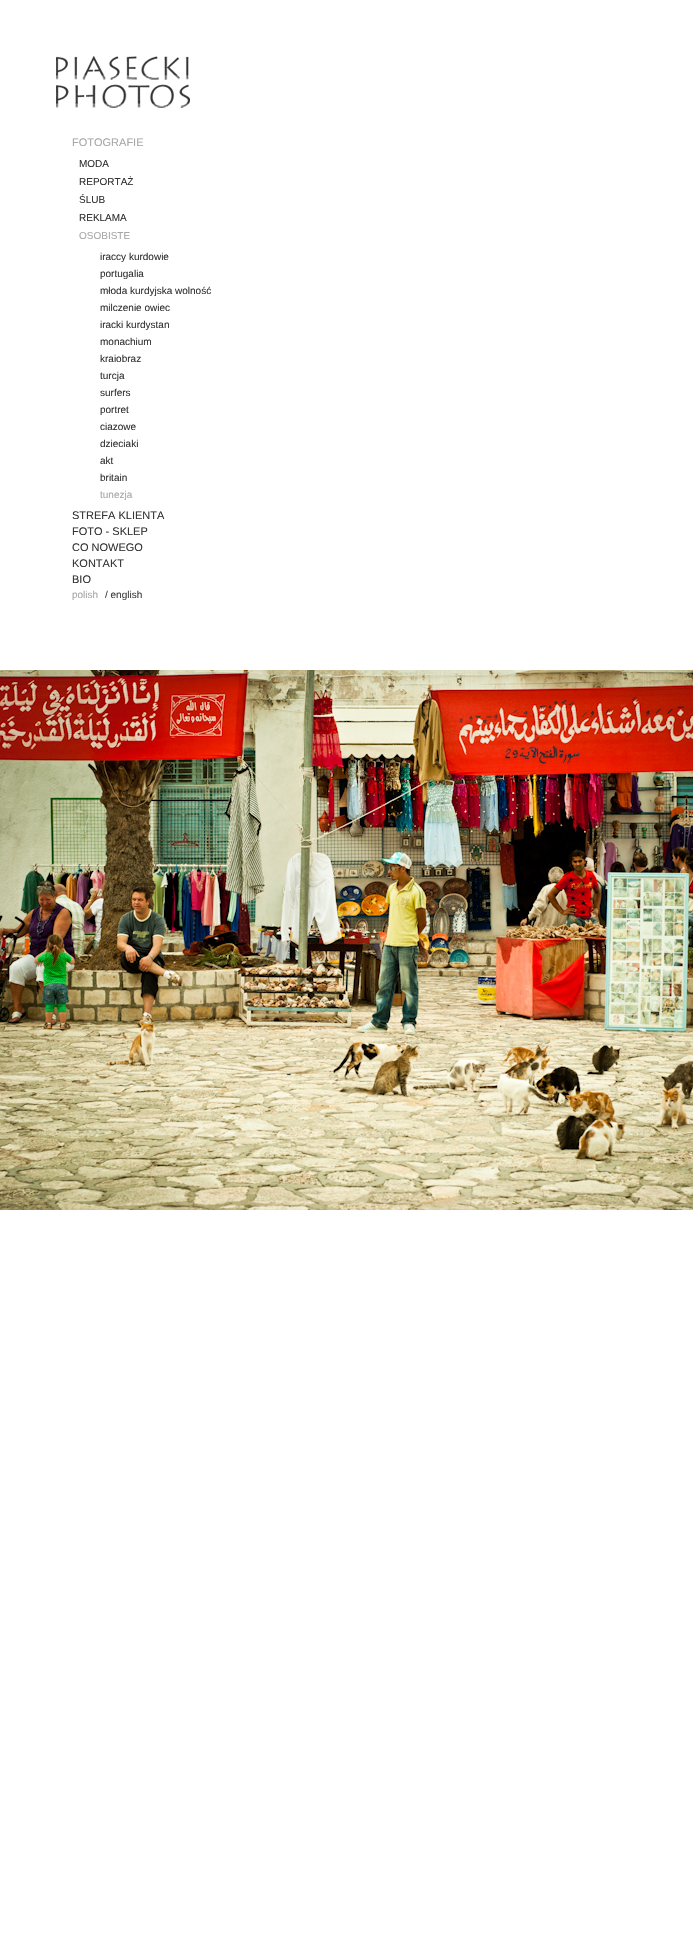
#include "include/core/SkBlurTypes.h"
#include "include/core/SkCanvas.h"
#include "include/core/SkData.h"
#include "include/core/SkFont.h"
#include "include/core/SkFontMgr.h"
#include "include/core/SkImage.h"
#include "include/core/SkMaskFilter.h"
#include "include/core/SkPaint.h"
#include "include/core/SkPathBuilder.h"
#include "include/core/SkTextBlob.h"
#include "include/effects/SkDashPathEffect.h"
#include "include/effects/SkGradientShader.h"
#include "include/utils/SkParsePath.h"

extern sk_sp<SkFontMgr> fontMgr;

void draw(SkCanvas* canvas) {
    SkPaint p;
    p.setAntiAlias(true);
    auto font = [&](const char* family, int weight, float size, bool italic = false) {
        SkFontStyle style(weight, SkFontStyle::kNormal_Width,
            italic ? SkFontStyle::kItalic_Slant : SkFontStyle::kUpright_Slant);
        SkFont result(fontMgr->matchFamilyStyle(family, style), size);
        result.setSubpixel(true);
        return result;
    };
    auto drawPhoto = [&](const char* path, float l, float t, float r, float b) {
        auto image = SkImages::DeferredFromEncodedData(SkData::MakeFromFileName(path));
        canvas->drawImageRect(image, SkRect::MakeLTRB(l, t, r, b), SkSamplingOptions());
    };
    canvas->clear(0xFFFFFFFF);
    drawPhoto("media/1.png", 56, 56, 190, 108);
    auto font1 = font("Liberation Sans", 400, 11);
    p.setColor(0xFFA7A7A7);
    canvas->drawString("FOTOGRAFIE", 72, 146, font1, p);
    auto font2 = font("Liberation Sans", 400, 10);
    p.setColor(0xFF333333);
    {
        const struct { const char* s; float x, y; } items[] = {
            {"MODA", 79, 167},
            {"REPORTAŻ", 79, 185},
            {"ŚLUB", 79, 203},
            {"REKLAMA", 79, 221},
        };
        for (auto [s, x, y] : items) {
            canvas->drawString(s, x, y, font2, p);
        }
    }
    p.setColor(0xFFA7A7A7);
    canvas->drawString("OSOBISTE", 79, 239, font2, p);
    p.setColor(0xFF333333);
    {
        const struct { const char* s; float x, y; } items[] = {
            {"iraccy kurdowie", 100, 260},
            {"portugalia", 100, 277},
            {"młoda kurdyjska wolność", 100, 294},
            {"milczenie owiec", 100, 311},
            {"iracki kurdystan", 100, 328},
            {"monachium", 100, 345},
            {"kraiobraz", 100, 362},
            {"turcja", 100, 379},
            {"surfers", 100, 396},
            {"portret", 100, 413},
            {"ciazowe", 100, 430},
            {"dzieciaki", 100, 447},
            {"akt", 100, 464},
            {"britain", 100, 481},
        };
        for (auto [s, x, y] : items) {
            canvas->drawString(s, x, y, font2, p);
        }
    }
    p.setColor(0xFFA7A7A7);
    canvas->drawString("tunezja", 100, 498, font2, p);
    p.setColor(0xFF333333);
    {
        const struct { const char* s; float x, y; } items[] = {
            {"STREFA KLIENTA", 72, 519},
            {"FOTO - SKLEP", 72, 535},
            {"CO NOWEGO", 72, 551},
            {"KONTAKT", 72, 567},
            {"BIO", 72, 583},
        };
        for (auto [s, x, y] : items) {
            canvas->drawString(s, x, y, font1, p);
        }
    }
    p.setColor(0xFFA7A7A7);
    canvas->drawString("polish", 72, 598, font2, p);
    p.setColor(0xFF3D3D3D);
    canvas->drawString("/ english", 105, 598, font2, p);
    drawPhoto("media/2.png", 0, 670, 693, 1210);
}
